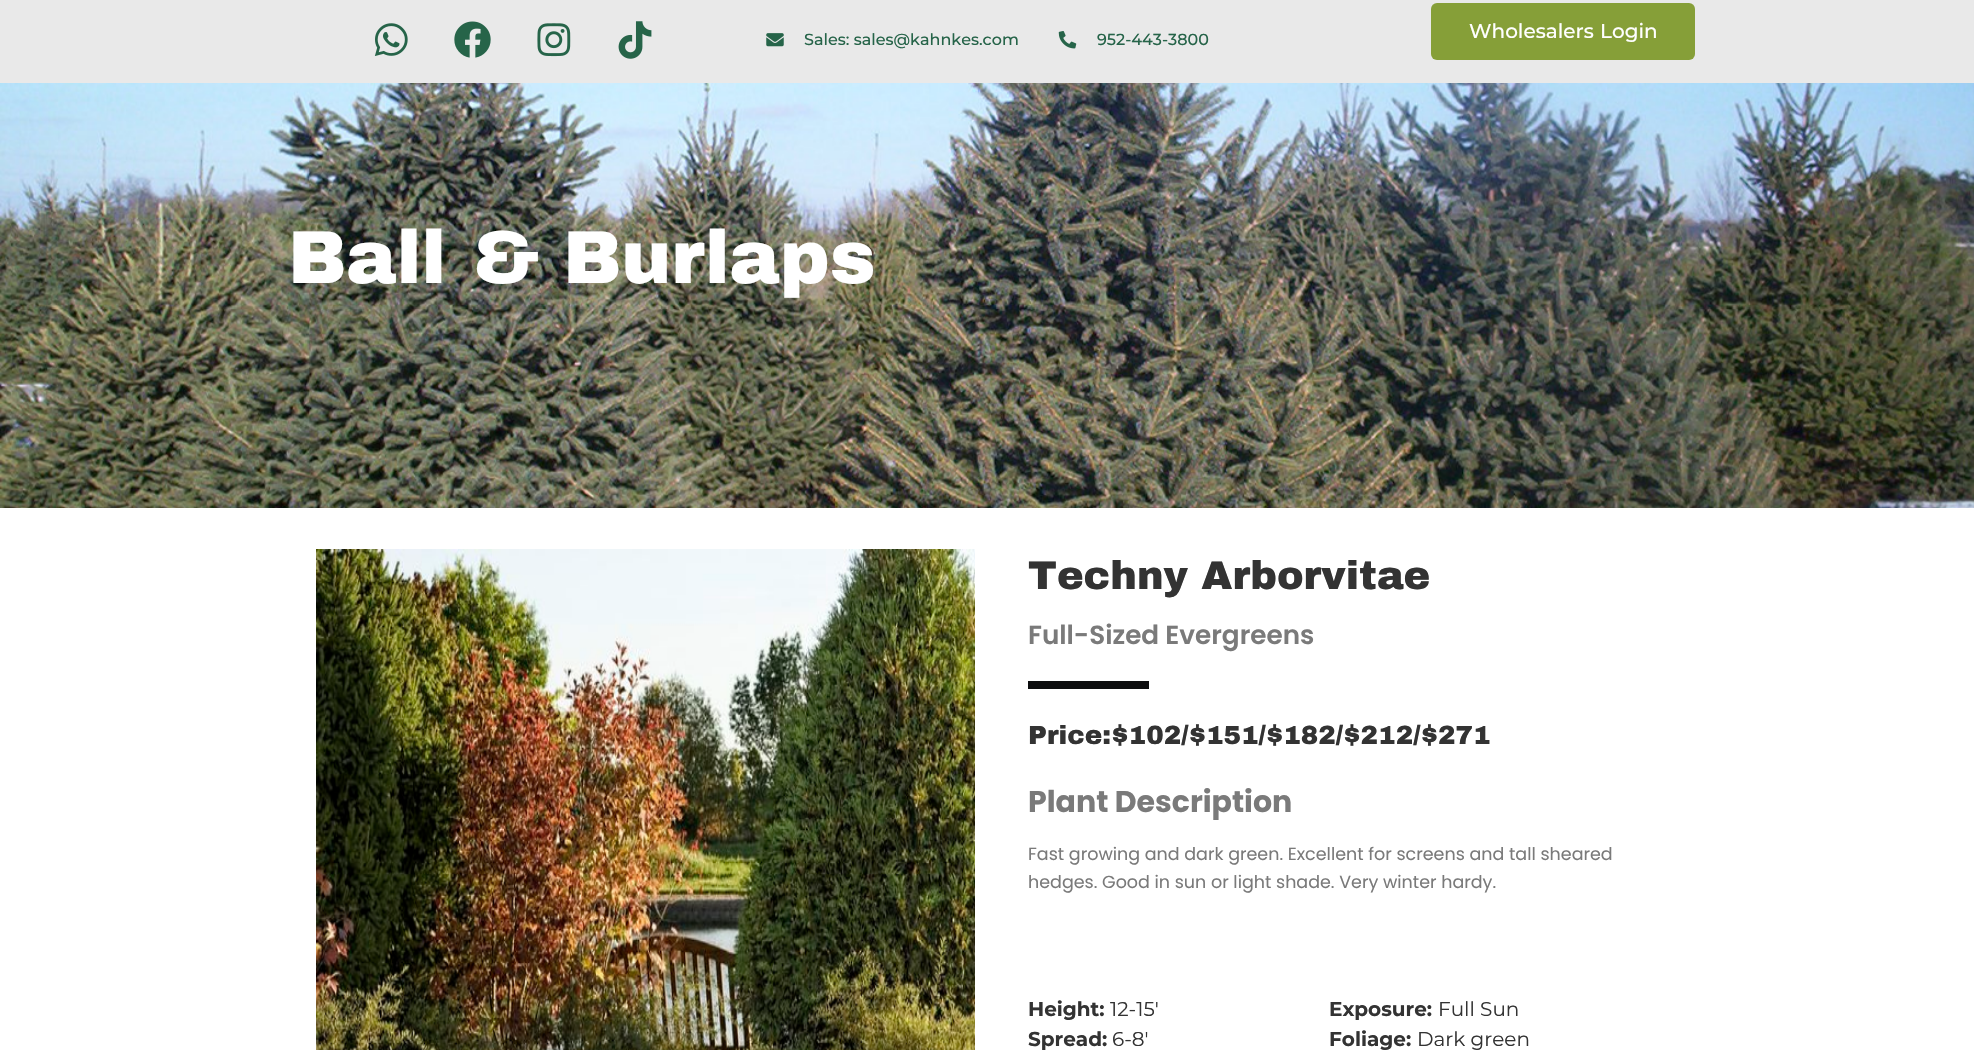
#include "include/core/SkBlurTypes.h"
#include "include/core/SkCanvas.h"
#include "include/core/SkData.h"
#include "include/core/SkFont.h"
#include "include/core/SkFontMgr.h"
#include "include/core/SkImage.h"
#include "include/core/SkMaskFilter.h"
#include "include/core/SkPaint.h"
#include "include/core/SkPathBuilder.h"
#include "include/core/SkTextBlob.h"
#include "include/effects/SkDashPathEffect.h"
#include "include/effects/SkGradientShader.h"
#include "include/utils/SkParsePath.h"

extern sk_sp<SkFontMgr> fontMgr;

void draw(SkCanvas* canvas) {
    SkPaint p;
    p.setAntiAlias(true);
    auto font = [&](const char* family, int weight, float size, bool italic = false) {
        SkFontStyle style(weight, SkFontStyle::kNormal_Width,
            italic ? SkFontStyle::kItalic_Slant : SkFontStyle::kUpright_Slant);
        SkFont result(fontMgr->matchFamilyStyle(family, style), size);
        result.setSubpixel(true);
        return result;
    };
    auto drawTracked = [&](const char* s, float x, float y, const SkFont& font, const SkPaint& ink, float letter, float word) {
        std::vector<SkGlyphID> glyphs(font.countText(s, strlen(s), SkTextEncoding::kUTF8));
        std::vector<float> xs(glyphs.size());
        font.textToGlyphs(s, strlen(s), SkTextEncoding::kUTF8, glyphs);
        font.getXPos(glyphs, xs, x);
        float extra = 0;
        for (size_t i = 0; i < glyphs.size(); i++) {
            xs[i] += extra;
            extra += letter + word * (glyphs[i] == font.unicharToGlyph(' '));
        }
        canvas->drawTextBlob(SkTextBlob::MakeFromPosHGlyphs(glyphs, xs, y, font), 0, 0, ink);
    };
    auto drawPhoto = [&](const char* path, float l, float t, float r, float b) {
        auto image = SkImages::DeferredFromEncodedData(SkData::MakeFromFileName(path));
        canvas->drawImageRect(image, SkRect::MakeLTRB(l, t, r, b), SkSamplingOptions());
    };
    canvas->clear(0xFFFFFFFF);
    p.setColor(0xFFE9E9E9);
    canvas->drawRect(SkRect::MakeLTRB(0, 0, 1974, 83), p);
    drawPhoto("media/1.png", 374, 23, 408, 56);
    drawPhoto("media/2.png", 454, 21, 491, 58);
    drawPhoto("media/3.png", 537, 23, 571, 57);
    drawPhoto("media/4.png", 618, 21, 652, 59);
    drawPhoto("media/5.png", 766, 33, 784, 47);
    auto font1 = font("Montserrat", 500, 16);
    p.setColor(0xFF266449);
    canvas->drawString("Sales: sales@kahnkes.com", 804, 45, font1, p);
    drawPhoto("media/6.png", 1058, 31, 1077, 49);
    canvas->drawString("952-443-3800", 1097, 45, font1, p);
    p.setColor(0xFF869F38);
    canvas->drawRoundRect(SkRect::MakeLTRB(1431, 3, 1695, 60), 6, 6, p);
    auto font2 = font("Montserrat", 500, 20);
    p.setColor(0xFFFFFFFF);
    drawTracked("Wholesalers Login", 1469, 38, font2, p, 0, 1);
    drawPhoto("media/7.png", 0, 83, 1974, 508);
    auto font3 = font("Archivo Black", 900, 75);
    canvas->drawString("Ball & Burlaps", 288, 283, font3, p);
    drawPhoto("media/8.png", 316, 549, 975, 1050);
    auto font4 = font("Archivo Black", 900, 40);
    p.setColor(0xFF333333);
    canvas->drawString("Techny Arborvitae", 1028, 589, font4, p);
    auto font5 = font("Poppins", 600, 26.25f);
    p.setColor(0xFF7A7A7A);
    canvas->drawString("Full-Sized Evergreens", 1028, 644, font5, p);
    p.setColor(0xFF0C0D0E);
    canvas->drawRect(SkRect::MakeLTRB(1028, 681, 1149, 689), p);
    auto font6 = font("Archivo Black", 900, 26.25f);
    p.setColor(0xFF333333);
    canvas->drawString("Price:$102/$151/$182/$212/$271", 1028, 744, font6, p);
    auto font7 = font("Poppins", 700, 30);
    p.setColor(0xFF7A7A7A);
    canvas->drawString("Plant Description", 1028, 812, font7, p);
    auto font8 = font("Poppins", 400, 17.5f);
    canvas->drawString("Fast growing and dark green. Excellent for screens and tall sheared", 1028, 860, font8, p);
    canvas->drawString("hedges. Good in sun or light shade. Very winter hardy.", 1028, 888, font8, p);
    auto font9 = font("Montserrat", 700, 20);
    p.setColor(0xFF333333);
    canvas->drawString("Height:", 1028, 1016, font9, p);
    auto font10 = font("Montserrat", 400, 20);
    canvas->drawString("12-15′", 1110, 1016, font10, p);
    canvas->drawString("Exposure:", 1329, 1016, font9, p);
    canvas->drawString("Full Sun", 1438, 1016, font10, p);
    canvas->drawString("Spread:", 1028, 1046, font9, p);
    canvas->drawString("6-8′", 1112, 1046, font10, p);
    canvas->drawString("Foliage:", 1329, 1046, font9, p);
    canvas->drawString("Dark green", 1417, 1046, font10, p);
}
